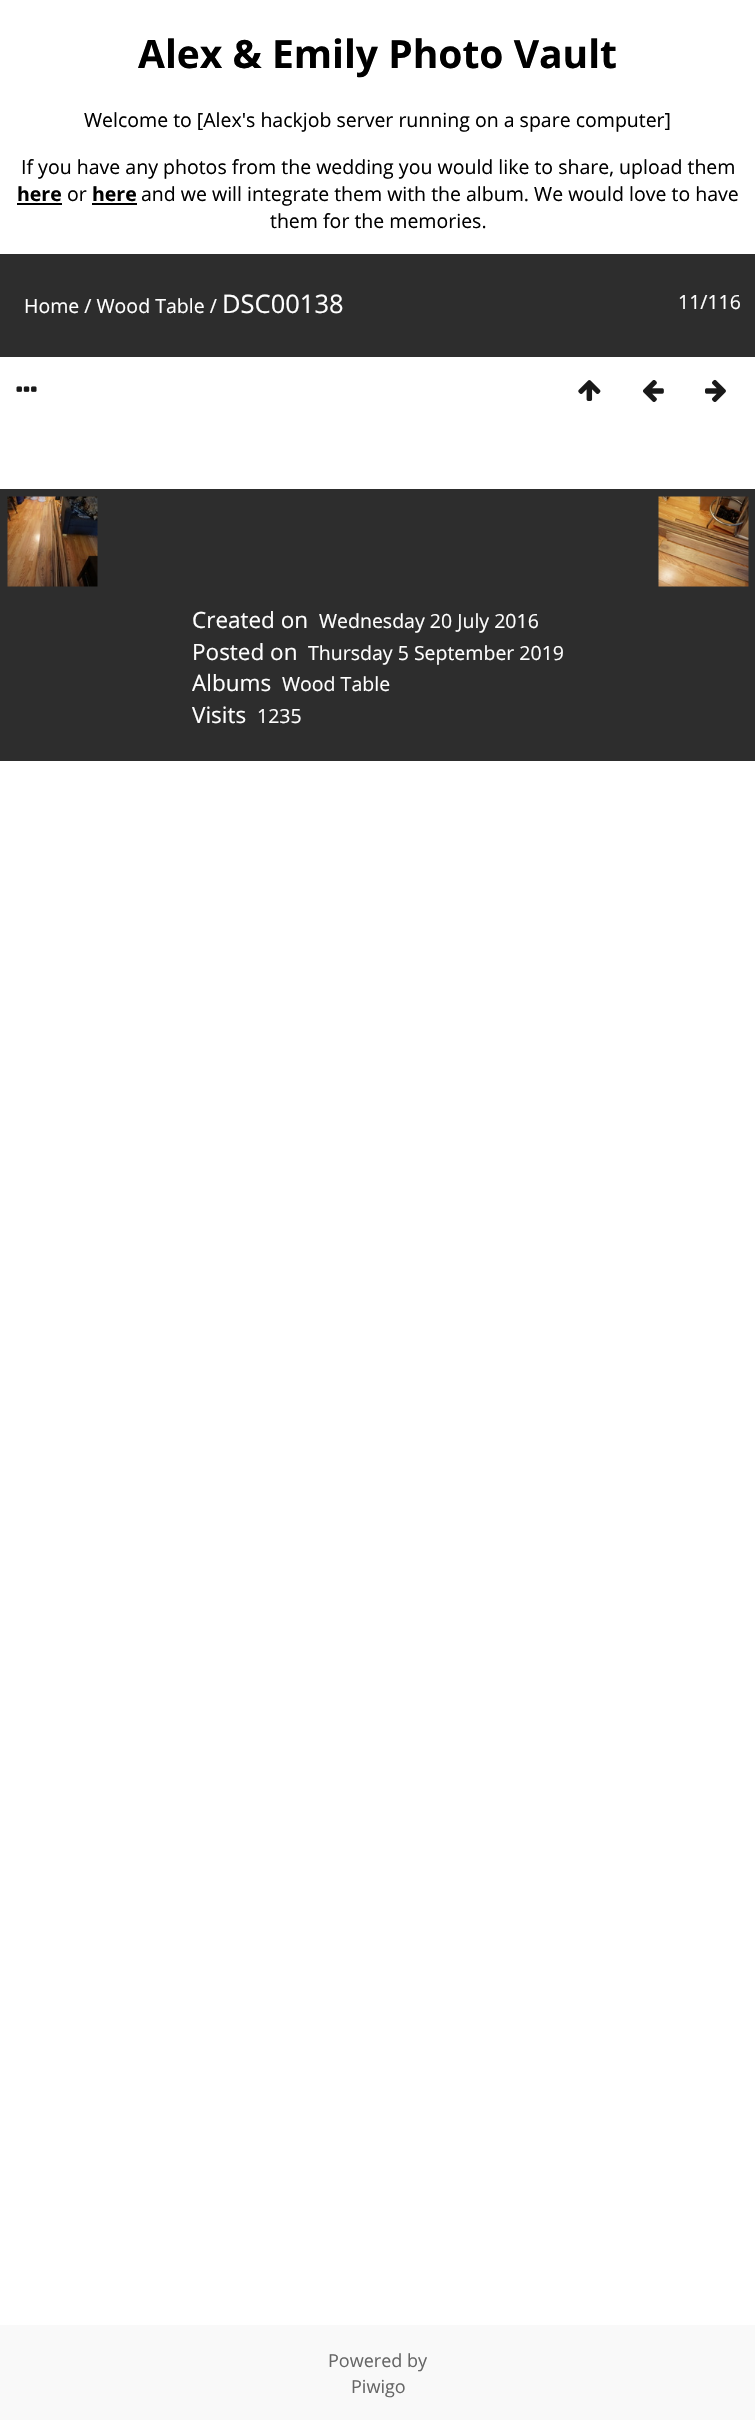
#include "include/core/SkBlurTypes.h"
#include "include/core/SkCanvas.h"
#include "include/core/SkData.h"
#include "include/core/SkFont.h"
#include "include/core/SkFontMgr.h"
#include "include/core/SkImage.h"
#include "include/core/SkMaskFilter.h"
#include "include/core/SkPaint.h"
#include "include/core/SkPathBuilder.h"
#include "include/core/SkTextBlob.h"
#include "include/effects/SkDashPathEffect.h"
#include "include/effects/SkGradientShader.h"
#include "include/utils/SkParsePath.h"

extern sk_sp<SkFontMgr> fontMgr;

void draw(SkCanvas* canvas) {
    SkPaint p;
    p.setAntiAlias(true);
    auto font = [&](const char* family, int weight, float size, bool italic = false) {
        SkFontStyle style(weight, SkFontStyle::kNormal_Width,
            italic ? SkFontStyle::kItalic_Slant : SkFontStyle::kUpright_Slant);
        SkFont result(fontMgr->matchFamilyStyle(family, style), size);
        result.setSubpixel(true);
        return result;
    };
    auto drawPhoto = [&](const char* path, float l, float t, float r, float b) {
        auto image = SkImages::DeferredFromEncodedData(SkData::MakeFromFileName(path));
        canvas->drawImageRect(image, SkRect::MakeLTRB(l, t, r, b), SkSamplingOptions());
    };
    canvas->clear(0xFFFFFFFF);
    auto font1 = font("Open Sans", 700, 39);
    p.setColor(0xFF000000);
    canvas->drawString("Alex & Emily Photo Vault", 138, 68, font1, p);
    auto font2 = font("Open Sans", 400, 19.5f);
    canvas->drawString("Welcome to [Alex's hackjob server running on a spare computer]", 84, 127, font2, p);
    canvas->drawString("If you have any photos from the wedding you would like to share, upload them", 21, 174, font2, p);
    auto font3 = font("Open Sans", 700, 19.5f);
    canvas->drawString("here", 17, 201, font3, p);
    canvas->drawRect(SkRect::MakeLTRB(17, 203, 62, 205), p);
    canvas->drawString("or", 67, 201, font2, p);
    canvas->drawString("here", 92, 201, font3, p);
    canvas->drawRect(SkRect::MakeLTRB(92, 203, 137, 205), p);
    canvas->drawString("and we will integrate them with the album. We would love to have", 141, 201, font2, p);
    canvas->drawString("them for the memories.", 270, 228, font2, p);
    p.setColor(0xFF2D2D2D);
    canvas->drawRect(SkRect::MakeLTRB(0, 254, 755, 357), p);
    p.setColor(0xFFFFFFFF);
    canvas->drawString("Home / Wood Table /", 24, 313, font2, p);
    auto font4 = font("Open Sans", 400, 25.5f);
    canvas->drawString("DSC00138", 222, 313, font4, p);
    canvas->drawString("11/116", 678, 309, font2, p);
    drawPhoto("media/1.png", 16, 386, 37, 392);
    drawPhoto("media/2.png", 578, 380, 601, 401);
    drawPhoto("media/3.png", 643, 380, 664, 402);
    drawPhoto("media/4.png", 705, 379, 726, 402);
    p.setColor(0xFF2D2D2D);
    canvas->drawRect(SkRect::MakeLTRB(0, 489, 755, 761), p);
    drawPhoto("media/5.png", 7, 496, 98, 587);
    drawPhoto("media/6.png", 658, 496, 749, 587);
    auto font5 = font("Open Sans", 400, 22.5f);
    p.setColor(0xFFFFFFFF);
    canvas->drawString("Created on", 192, 628, font5, p);
    canvas->drawString("Wednesday 20 July 2016", 319, 628, font2, p);
    canvas->drawString("Posted on", 192, 660, font5, p);
    canvas->drawString("Thursday 5 September 2019", 308, 660, font2, p);
    canvas->drawString("Albums", 192, 691, font5, p);
    canvas->drawString("Wood Table", 282, 691, font2, p);
    canvas->drawString("Visits", 192, 723, font5, p);
    canvas->drawString("1235", 257, 723, font2, p);
    p.setColor(0xFFF9F9F9);
    canvas->drawRect(SkRect::MakeLTRB(0, 2325, 755, 2420), p);
    auto font6 = font("Open Sans", 400, 18);
    p.setColor(0xFF666666);
    canvas->drawString("Powered by", 328, 2367, font6, p);
    canvas->drawString("Piwigo", 351, 2393, font6, p);
}
